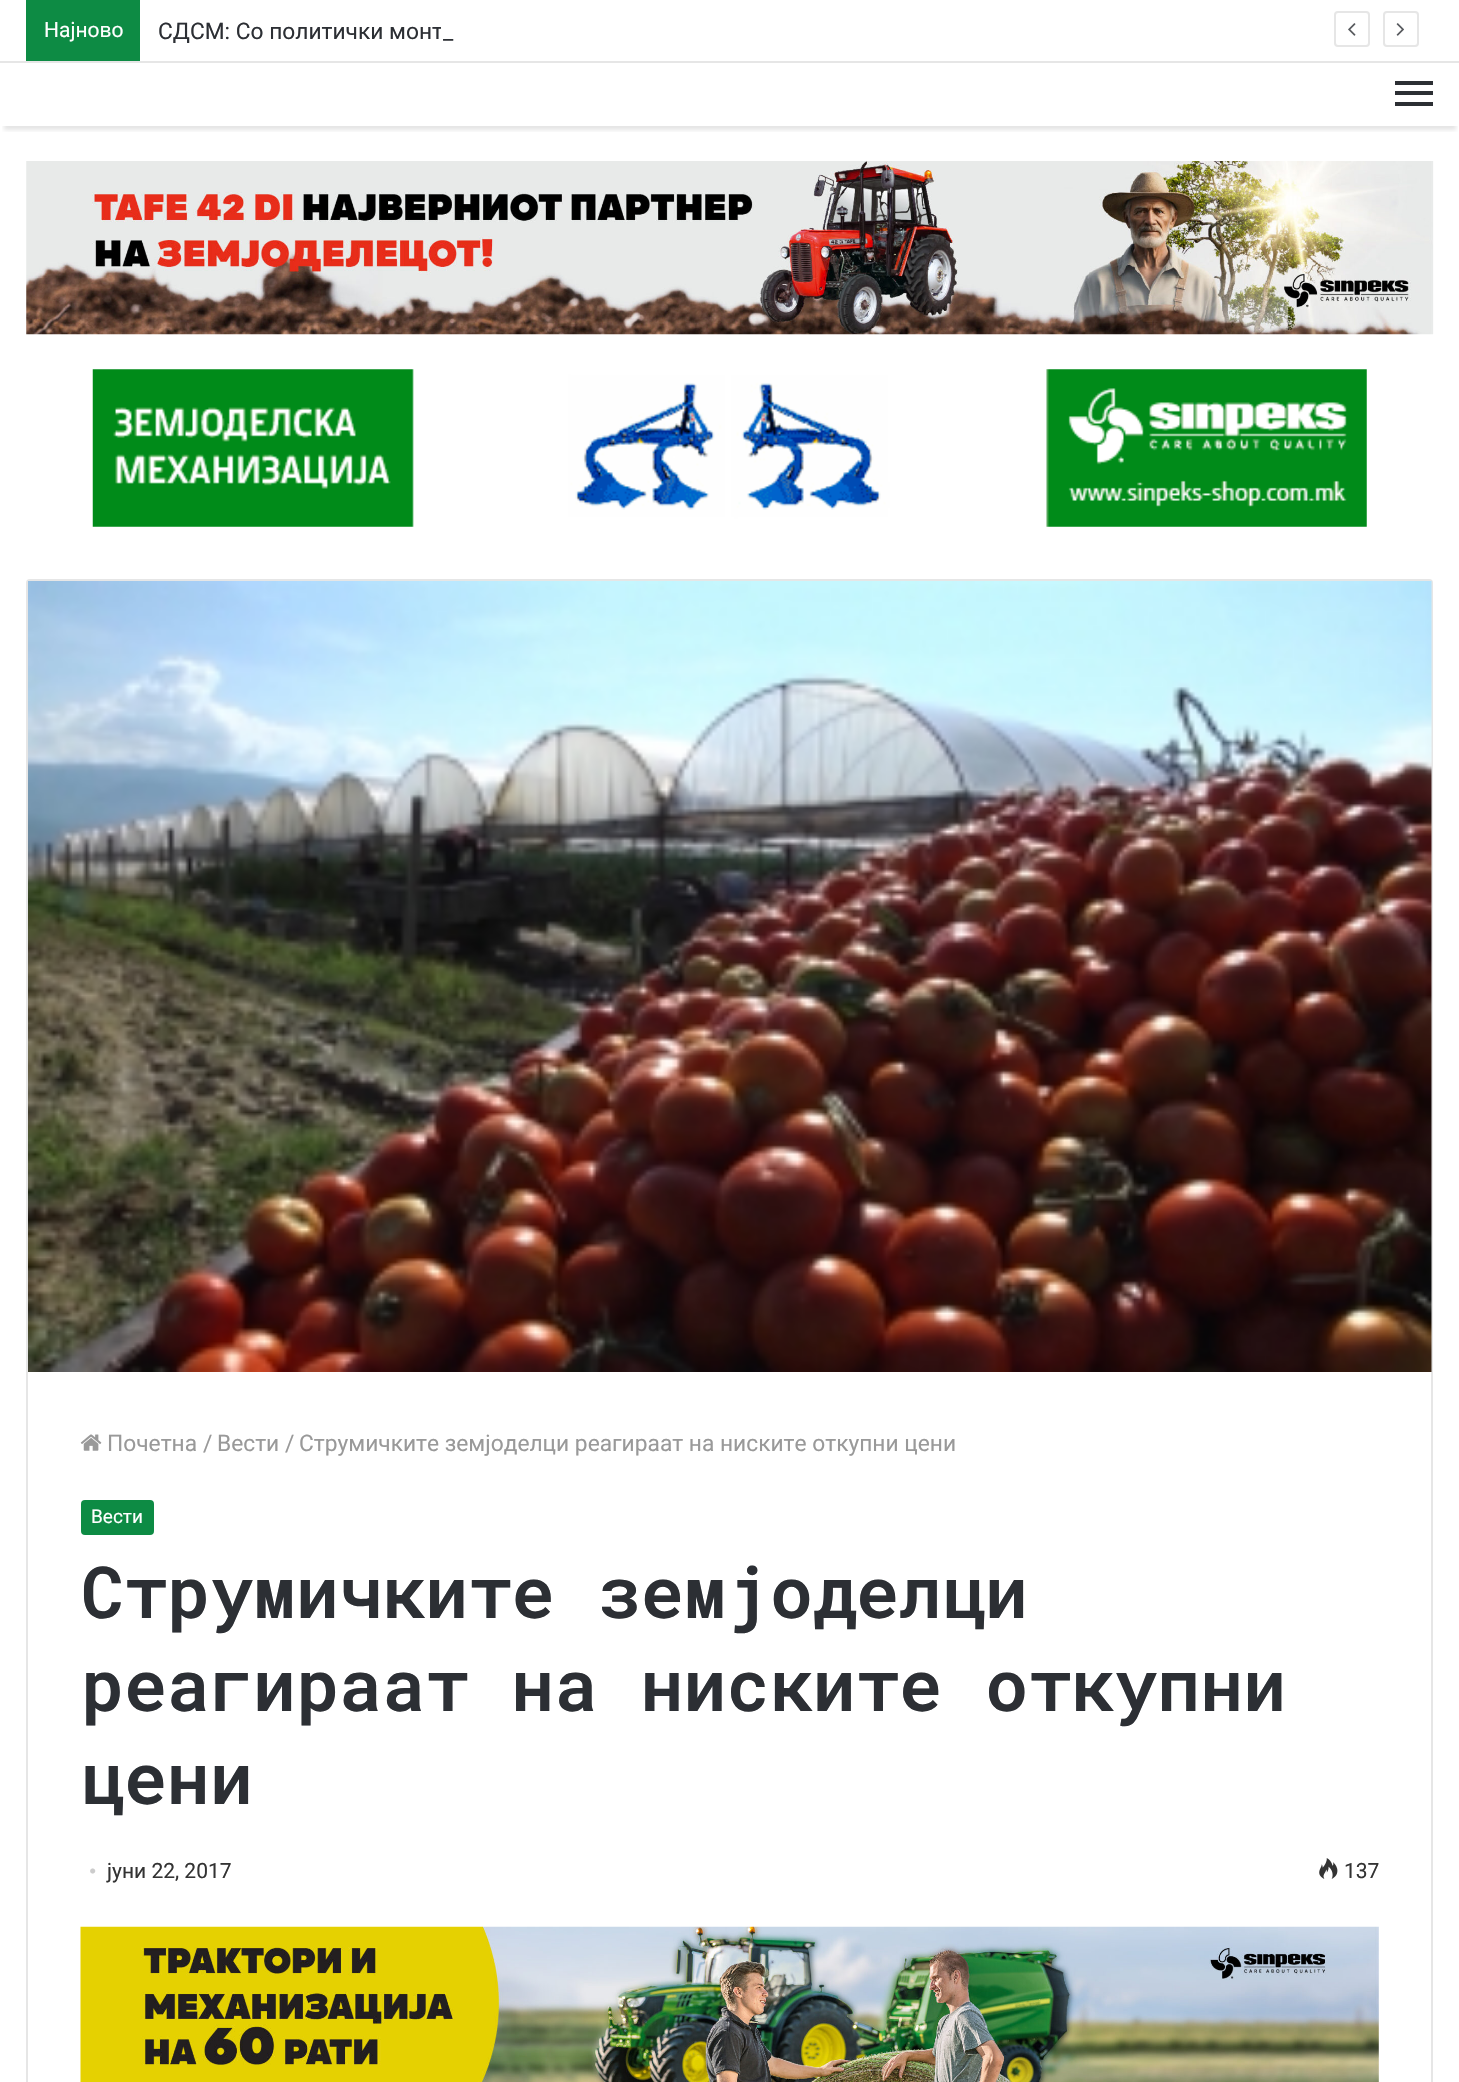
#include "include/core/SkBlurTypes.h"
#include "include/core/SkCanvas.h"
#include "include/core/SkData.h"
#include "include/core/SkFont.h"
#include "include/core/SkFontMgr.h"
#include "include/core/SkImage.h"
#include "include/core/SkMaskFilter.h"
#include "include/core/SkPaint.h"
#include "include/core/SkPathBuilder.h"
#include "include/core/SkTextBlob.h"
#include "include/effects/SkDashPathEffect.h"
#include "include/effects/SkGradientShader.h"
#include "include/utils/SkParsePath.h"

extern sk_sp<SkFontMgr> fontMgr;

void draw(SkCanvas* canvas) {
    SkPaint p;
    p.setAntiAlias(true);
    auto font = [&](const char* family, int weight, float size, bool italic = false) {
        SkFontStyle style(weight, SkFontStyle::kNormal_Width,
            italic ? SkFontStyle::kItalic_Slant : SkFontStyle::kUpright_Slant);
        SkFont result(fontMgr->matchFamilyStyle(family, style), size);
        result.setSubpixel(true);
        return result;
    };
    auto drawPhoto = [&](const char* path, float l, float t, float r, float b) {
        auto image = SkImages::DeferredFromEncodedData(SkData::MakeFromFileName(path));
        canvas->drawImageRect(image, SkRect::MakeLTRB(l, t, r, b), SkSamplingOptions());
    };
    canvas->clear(0xFFFFFFFF);
    p.setColor(0xFFE6E6E6);
    canvas->drawRect(SkRect::MakeLTRB(0, 61, 1459, 63), p);
    p.setColor(0xFF0D8B44);
    canvas->drawRect(SkRect::MakeLTRB(26, 0, 140, 61), p);
    auto font1 = font("Roboto", 400, 21);
    p.setColor(0xFFFFFFFF);
    canvas->drawString("Најново", 44, 37, font1, p);
    auto font2 = font("Roboto", 400, 22.75f);
    p.setColor(0xFF2C2F34);
    canvas->drawString("СДСМ: Со политички монт", 158, 39, font2, p);
    p.setColor(0xFFFFFFFF);
    canvas->drawRect(SkRect::MakeLTRB(441, 27, 443, 29), p);
    p.setColor(0xFF2C2F34);
    canvas->drawString("_", 443, 39, font2, p);
    p.setStyle(SkPaint::kStroke_Style);
    p.setStrokeWidth(2);
    p.setColor(0xFFE6E6E6);
    canvas->drawRoundRect(SkRect::MakeLTRB(1335, 12, 1369, 46), 3, 3, p);
    drawPhoto("media/1.png", 1348, 23, 1356, 36);
    canvas->drawRoundRect(SkRect::MakeLTRB(1384, 12, 1418, 46), 3, 3, p);
    drawPhoto("media/2.png", 1396, 23, 1404, 36);
    canvas->save();
    canvas->clipRect(SkRect::MakeLTRB(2, 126, 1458, 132));
    p.setStyle(SkPaint::kFill_Style);
    p.setColor(0x1A000000);
    p.setMaskFilter(SkMaskFilter::MakeBlur(kNormal_SkBlurStyle, 2));
    canvas->drawRect(SkRect::MakeLTRB(4, 74, 1456, 130), p);
    p.setMaskFilter(nullptr);
    canvas->restore();
    {
        const struct { float l, t, r, b; SkColor color; } items[] = {
            {1395, 91, 1433, 95, 0xFF2C2F34},
            {1395, 81, 1433, 85, 0xFF2C2F34},
            {1395, 102, 1433, 106, 0xFF2C2F34},
        };
        for (auto [l, t, r, b, color] : items) {
            p.setColor(color);
            canvas->drawRect(SkRect::MakeLTRB(l, t, r, b), p);
        }
    }
    drawPhoto("media/3.png", 26, 161, 1434, 335);
    drawPhoto("media/4.png", 92, 369, 1367, 527);
    p.setStyle(SkPaint::kStroke_Style);
    p.setColor(0xFFE6E6E6);
    canvas->drawRoundRect(SkRect::MakeLTRB(27, 580, 1432, 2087), 3, 3, p);
    drawPhoto("media/5.png", 28, 581, 1432, 1372);
    drawPhoto("media/6.png", 80, 1434, 102, 1451);
    p.setStyle(SkPaint::kFill_Style);
    p.setColor(0xFF999999);
    {
        const struct { const char* s; float x, y; } items[] = {
            {"Почетна", 107, 1451},
            {"/", 203, 1451},
            {"Вести", 217, 1451},
            {"/", 285, 1451},
            {"Струмичките земјоделци реагираат на ниските откупни цени", 299, 1451},
        };
        for (auto [s, x, y] : items) {
            canvas->drawString(s, x, y, font2, p);
        }
    }
    p.setColor(0xFF0D8B44);
    canvas->drawRoundRect(SkRect::MakeLTRB(81, 1500, 154, 1535), 4, 4, p);
    auto font3 = font("Roboto", 400, 19);
    p.setColor(0xFFFFFFFF);
    canvas->drawString("Вести", 91, 1523, font3, p);
    auto font4 = font("Roboto Mono", 600, 71.75f);
    p.setColor(0xFF2C2F34);
    {
        const struct { const char* s; float x, y; } items[] = {
            {"Струмичките земјоделци", 81, 1618},
            {"реагираат на ниските откупни", 81, 1711},
            {"цени", 81, 1804},
        };
        for (auto [s, x, y] : items) {
            canvas->drawString(s, x, y, font4, p);
        }
    }
    auto font5 = font("Liberation Serif", 400, 21);
    p.setColor(0xFFCCCCCC);
    canvas->drawString("•", 89, 1878, font5, p);
    p.setColor(0xFF333333);
    canvas->drawString("јуни 22, 2017", 107, 1878, font1, p);
    drawPhoto("media/7.png", 1319, 1858, 1338, 1879);
    canvas->drawString("137", 1344, 1878, font1, p);
    drawPhoto("media/8.png", 80, 1926, 1379, 2082);
}
